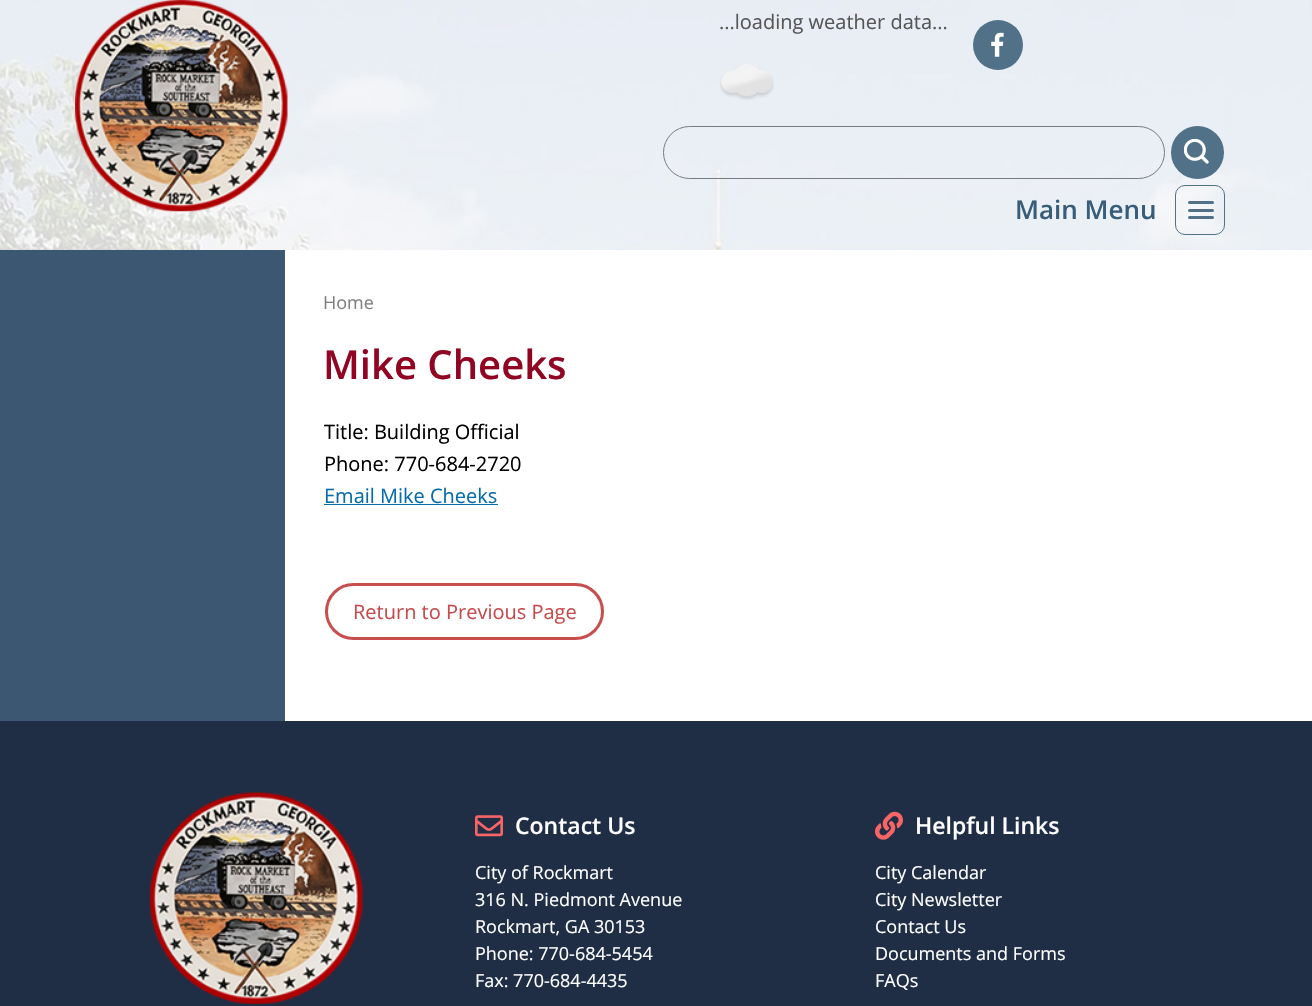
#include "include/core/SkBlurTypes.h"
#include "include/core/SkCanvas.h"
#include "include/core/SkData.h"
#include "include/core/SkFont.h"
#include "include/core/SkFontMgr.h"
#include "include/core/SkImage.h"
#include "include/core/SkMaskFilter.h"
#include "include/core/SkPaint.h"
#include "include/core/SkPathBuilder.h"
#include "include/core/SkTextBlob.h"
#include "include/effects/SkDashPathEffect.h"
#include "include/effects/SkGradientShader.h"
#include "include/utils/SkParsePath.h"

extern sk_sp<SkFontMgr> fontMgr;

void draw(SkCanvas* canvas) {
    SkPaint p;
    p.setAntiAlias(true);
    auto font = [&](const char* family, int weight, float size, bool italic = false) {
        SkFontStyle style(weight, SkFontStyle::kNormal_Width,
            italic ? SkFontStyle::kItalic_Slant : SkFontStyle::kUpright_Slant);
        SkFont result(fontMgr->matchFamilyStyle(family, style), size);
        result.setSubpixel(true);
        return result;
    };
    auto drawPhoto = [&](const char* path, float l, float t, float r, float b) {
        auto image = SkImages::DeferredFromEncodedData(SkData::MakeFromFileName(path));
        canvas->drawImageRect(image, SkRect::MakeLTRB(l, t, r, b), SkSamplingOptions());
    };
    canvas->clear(0xFFFFFFFF);
    drawPhoto("media/1.png", 0, 0, 1312, 250);
    drawPhoto("media/2.png", 75, 0, 288, 212);
    auto font1 = font("Open Sans", 400, 20);
    p.setColor(0xFF575656);
    canvas->drawString("...loading weather data...", 719, 29, font1, p);
    drawPhoto("media/3.png", 720, 64, 774, 100);
    p.setColor(0xFF517188);
    canvas->drawCircle(998, 45, 25, p);
    drawPhoto("media/4.png", 991, 32, 1004, 57);
    p.setStyle(SkPaint::kStroke_Style);
    p.setStrokeWidth(1);
    p.setColor(0xFF777B7E);
    canvas->drawRoundRect(SkRect::MakeLTRB(663.5f, 126.5f, 1164.5f, 178.5f), 26, 26, p);
    p.setStyle(SkPaint::kFill_Style);
    p.setColor(0xFF517188);
    canvas->drawCircle(1197.5f, 152.5f, 26.5f, p);
    drawPhoto("media/5.png", 1184, 139, 1209, 164);
    auto font2 = font("Open Sans", 600, 26);
    p.setColor(0xFF385D78);
    canvas->drawString("Main Menu", 1015, 219, font2, p);
    p.setStyle(SkPaint::kStroke_Style);
    p.setColor(0xFF517188);
    canvas->drawRoundRect(SkRect::MakeLTRB(1175.5f, 185.5f, 1224.5f, 234.5f), 9.5f, 9.5f, p);
    p.setStyle(SkPaint::kFill_Style);
    canvas->drawRoundRect(SkRect::MakeLTRB(1188, 201, 1214, 204), 1.5f, 1.5f, p);
    canvas->drawRoundRect(SkRect::MakeLTRB(1188, 209, 1214, 212), 1.5f, 1.5f, p);
    canvas->drawRoundRect(SkRect::MakeLTRB(1188, 216, 1214, 219), 1.5f, 1.5f, p);
    p.setColor(0xFF3B5771);
    canvas->drawRect(SkRect::MakeLTRB(0, 250, 285, 721), p);
    auto font3 = font("Open Sans", 400, 18);
    p.setColor(0xFF808080);
    canvas->drawString("Home", 323, 309, font3, p);
    auto font4 = font("Open Sans", 600, 40);
    p.setColor(0xFF910522);
    canvas->drawString("Mike Cheeks", 323, 379, font4, p);
    p.setColor(0xFF000000);
    canvas->drawString("Title: Building Official", 324, 439, font1, p);
    canvas->drawString("Phone: 770-684-2720", 324, 471, font1, p);
    p.setColor(0xFF066CAC);
    canvas->drawString("Email Mike Cheeks", 324, 503, font1, p);
    canvas->drawRect(SkRect::MakeLTRB(324, 504, 498, 505), p);
    p.setStyle(SkPaint::kStroke_Style);
    p.setStrokeWidth(3);
    p.setColor(0xFFC84E4D);
    canvas->drawRoundRect(SkRect::MakeLTRB(326.5f, 584.5f, 602.5f, 638.5f), 27, 27, p);
    p.setStyle(SkPaint::kFill_Style);
    p.setColor(0xFFC64B4C);
    canvas->drawString("Return to Previous Page", 353, 619, font1, p);
    p.setColor(0xFF1F2E45);
    canvas->drawRect(SkRect::MakeLTRB(0, 721, 1312, 1006), p);
    drawPhoto("media/6.png", 150, 792, 363, 1004);
    drawPhoto("media/7.png", 475, 815, 503, 837);
    auto font5 = font("Open Sans", 600, 23);
    p.setColor(0xFFFFFFFF);
    canvas->drawString("Contact Us", 515, 834, font5, p);
    {
        const struct { const char* s; float x, y; } items[] = {
            {"City of Rockmart", 475, 879},
            {"316 N. Piedmont Avenue", 475, 906},
            {"Rockmart, GA 30153", 475, 933},
            {"Phone: 770-684-5454", 475, 960},
            {"Fax: 770-684-4435", 475, 987},
        };
        for (auto [s, x, y] : items) {
            canvas->drawString(s, x, y, font3, p);
        }
    }
    drawPhoto("media/8.png", 875, 811, 903, 840);
    canvas->drawString("Helpful Links", 915, 834, font5, p);
    {
        const struct { const char* s; float x, y; } items[] = {
            {"City Calendar", 875, 879},
            {"City Newsletter", 875, 906},
            {"Contact Us", 875, 933},
            {"Documents and Forms", 875, 960},
            {"FAQs", 875, 987},
        };
        for (auto [s, x, y] : items) {
            canvas->drawString(s, x, y, font3, p);
        }
    }
}
